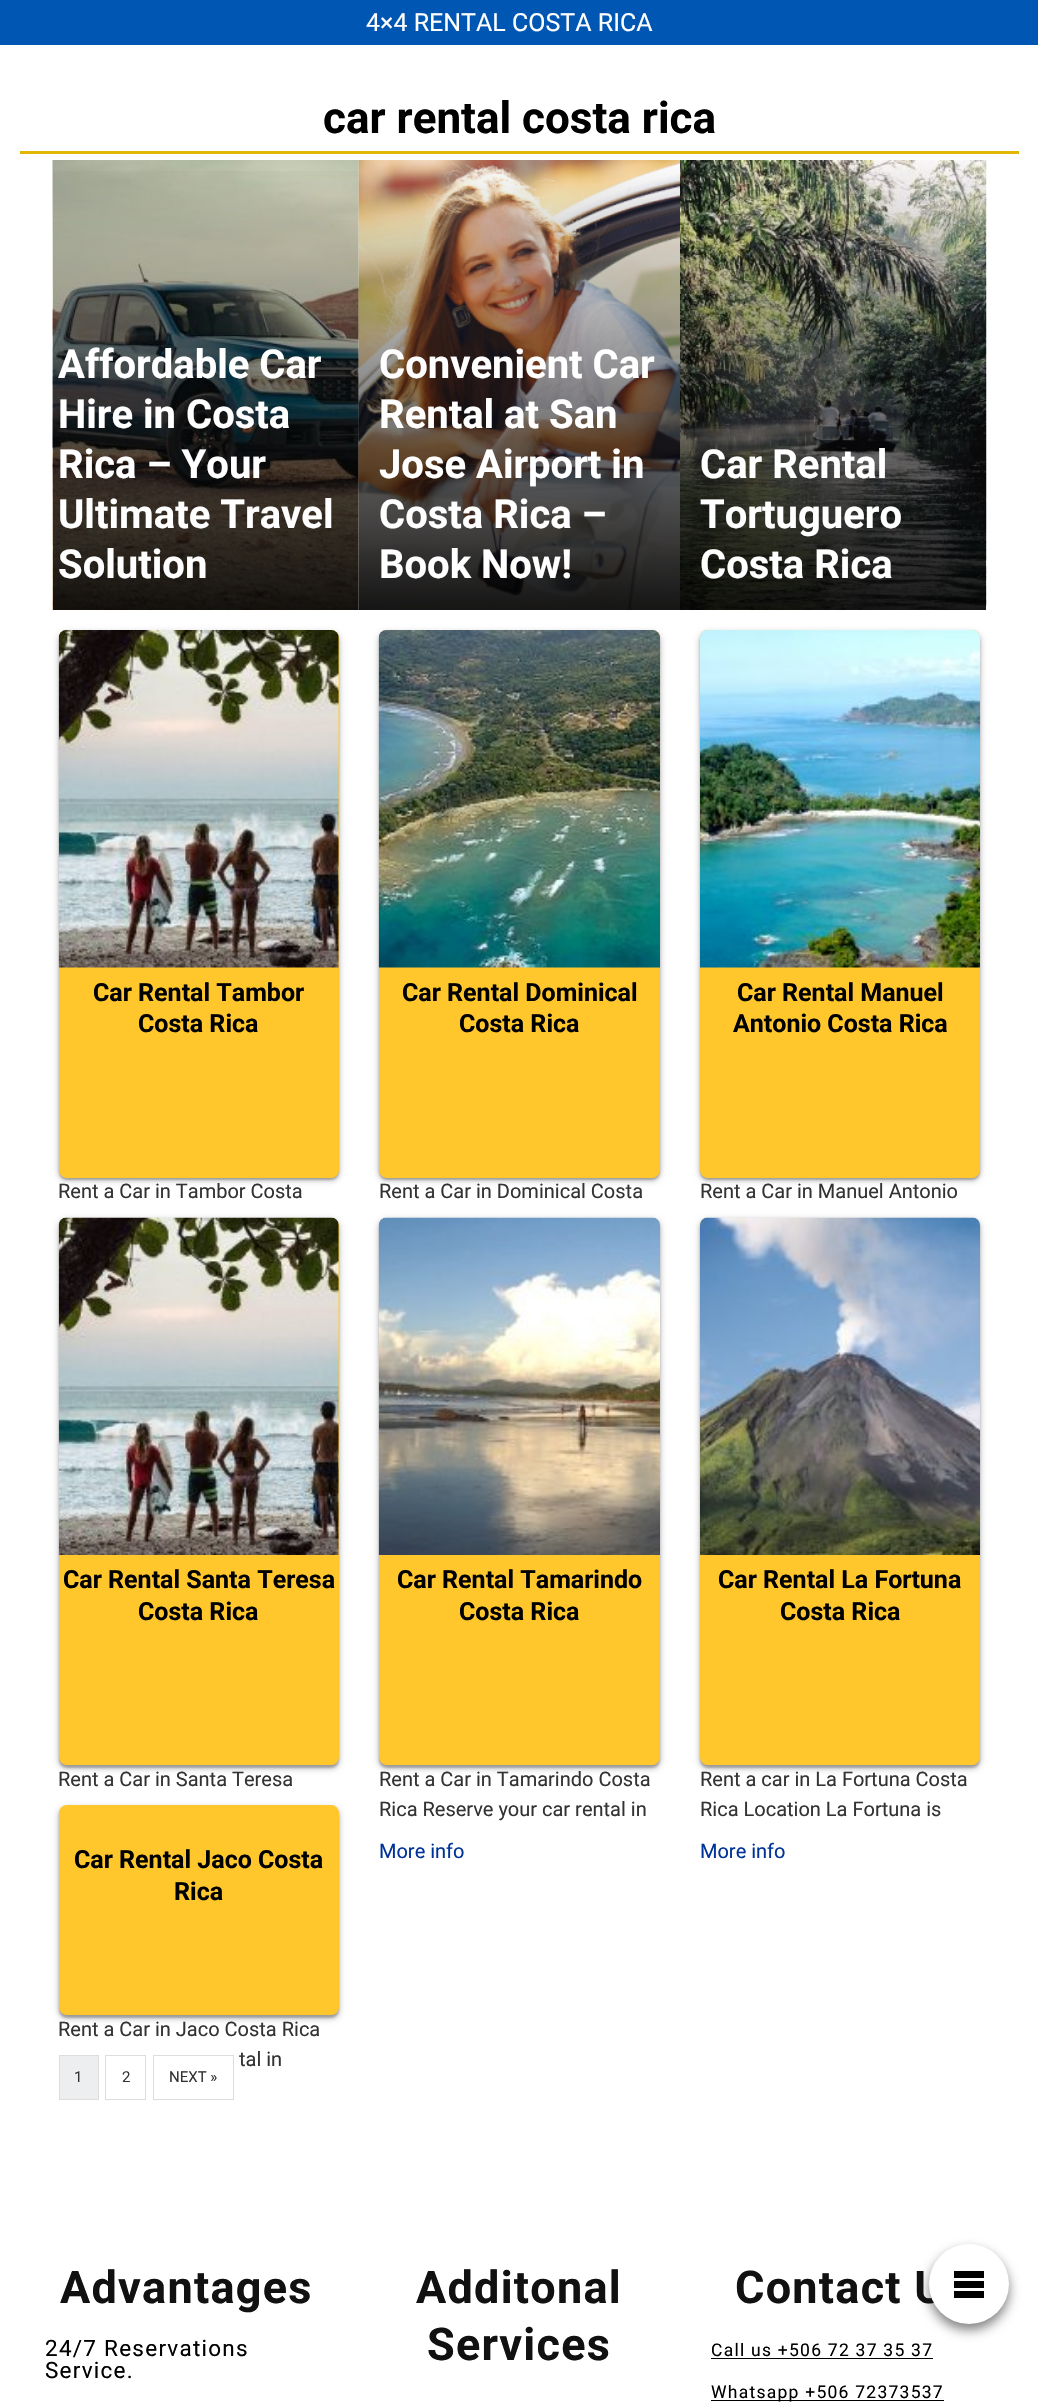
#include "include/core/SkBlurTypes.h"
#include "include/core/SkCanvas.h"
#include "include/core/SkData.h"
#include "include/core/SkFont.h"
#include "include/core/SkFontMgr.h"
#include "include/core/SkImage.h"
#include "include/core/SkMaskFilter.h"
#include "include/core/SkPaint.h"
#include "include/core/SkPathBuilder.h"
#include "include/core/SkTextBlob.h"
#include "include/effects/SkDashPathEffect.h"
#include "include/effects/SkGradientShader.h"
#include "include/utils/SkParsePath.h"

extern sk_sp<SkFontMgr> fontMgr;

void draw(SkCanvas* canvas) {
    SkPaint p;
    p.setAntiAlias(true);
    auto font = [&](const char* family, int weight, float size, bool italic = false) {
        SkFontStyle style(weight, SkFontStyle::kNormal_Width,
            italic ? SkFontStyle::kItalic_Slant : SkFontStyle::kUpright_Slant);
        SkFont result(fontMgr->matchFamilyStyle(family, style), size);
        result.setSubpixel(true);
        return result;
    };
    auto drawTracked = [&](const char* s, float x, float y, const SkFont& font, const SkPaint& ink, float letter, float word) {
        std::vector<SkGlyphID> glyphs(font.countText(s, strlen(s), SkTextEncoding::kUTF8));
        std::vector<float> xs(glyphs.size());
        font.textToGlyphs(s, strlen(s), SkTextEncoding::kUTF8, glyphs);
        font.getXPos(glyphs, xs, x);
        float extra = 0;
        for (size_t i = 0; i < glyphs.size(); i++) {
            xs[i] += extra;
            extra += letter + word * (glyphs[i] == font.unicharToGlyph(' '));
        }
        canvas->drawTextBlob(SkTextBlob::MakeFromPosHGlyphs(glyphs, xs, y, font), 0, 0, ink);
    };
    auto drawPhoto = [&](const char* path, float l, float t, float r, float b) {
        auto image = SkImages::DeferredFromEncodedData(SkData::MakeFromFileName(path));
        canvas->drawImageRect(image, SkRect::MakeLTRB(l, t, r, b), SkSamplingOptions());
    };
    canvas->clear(0xFFFFFFFF);
    p.setColor(0xFF0056B3);
    canvas->drawRect(SkRect::MakeLTRB(0, 0, 1038, 45), p);
    auto font1 = font("Roboto", 400, 25);
    p.setColor(0xFFFFFFFF);
    canvas->drawString("4×4 RENTAL COSTA RICA", 366, 31, font1, p);
    p.setColor(0x80000000);
    p.setMaskFilter(SkMaskFilter::MakeBlur(kNormal_SkBlurStyle, 6));
    canvas->drawRoundRect(SkRect::MakeLTRB(929, 2250, 1009, 2330), 40, 40, p);
    p.setMaskFilter(nullptr);
    auto font2 = font("Roboto", 700, 45);
    p.setColor(0xFF111111);
    drawTracked("Contact U", 735, 2303, font2, p, 1.25f, 0);
    p.setColor(0xFFFFFFFF);
    canvas->drawCircle(969, 2284, 40, p);
    {
        const struct { float l, t, r, b; SkColor color; } items[] = {
            {954, 2281, 984, 2288, 0xFF000000},
            {954, 2271, 984, 2278, 0xFF000000},
            {954, 2291, 984, 2298, 0xFF000000},
            {20, 151, 1019, 154, 0xFFE0B702},
        };
        for (auto [l, t, r, b, color] : items) {
            p.setColor(color);
            canvas->drawRect(SkRect::MakeLTRB(l, t, r, b), p);
        }
    }
    auto font3 = font("Roboto", 700, 44);
    p.setColor(0xFF000000);
    canvas->drawString("car rental costa rica", 323, 133, font3, p);
    drawPhoto("media/1.png", 52, 160, 359, 610);
    {
        const SkColor colors[] = {0x00000000, 0xE6000000};
        const float stops[] = {0, 1};
        const SkPoint ends[] = {{199, 160}, {199, 610}};
        p.setShader(SkGradientShader::MakeLinear(ends, colors, stops, 2, SkTileMode::kClamp));
        p.setAlpha(255);
    }
    canvas->drawRect(SkRect::MakeLTRB(53, 171, 359, 610), p);
    auto font4 = font("Roboto", 700, 40);
    p.setShader(nullptr);
    p.setColor(0xFFFFFFFF);
    {
        const struct { const char* s; float x, y; } items[] = {
            {"Affordable Car", 58, 378},
            {"Hire in Costa", 58, 428},
            {"Rica – Your", 58, 478},
            {"Ultimate Travel", 58, 528},
            {"Solution", 58, 578},
        };
        for (auto [s, x, y] : items) {
            canvas->drawString(s, x, y, font4, p);
        }
    }
    drawPhoto("media/2.png", 358, 160, 680, 610);
    {
        const struct { const char* s; float x, y; } items[] = {
            {"Convenient Car", 379, 378},
            {"Rental at San", 379, 428},
            {"Jose Airport in", 379, 478},
            {"Costa Rica –", 379, 528},
            {"Book Now!", 379, 578},
        };
        for (auto [s, x, y] : items) {
            canvas->drawString(s, x, y, font4, p);
        }
    }
    drawPhoto("media/3.png", 680, 160, 987, 610);
    {
        const struct { const char* s; float x, y; } items[] = {
            {"Car Rental", 700, 478},
            {"Tortuguero", 700, 528},
            {"Costa Rica", 700, 578},
        };
        for (auto [s, x, y] : items) {
            canvas->drawString(s, x, y, font4, p);
        }
    }
    p.setColor(0x4D000000);
    p.setMaskFilter(SkMaskFilter::MakeBlur(kNormal_SkBlurStyle, 3));
    canvas->drawRoundRect(SkRect::MakeLTRB(59, 633, 339, 1180), 8, 8, p);
    p.setMaskFilter(nullptr);
    p.setColor(0x33000000);
    p.setMaskFilter(SkMaskFilter::MakeBlur(kNormal_SkBlurStyle, 1));
    canvas->drawRoundRect(SkRect::MakeLTRB(59, 633, 339, 1180), 8, 8, p);
    p.setMaskFilter(nullptr);
    p.setColor(0xFFFFC72C);
    canvas->drawRoundRect(SkRect::MakeLTRB(59, 630, 339, 1178), 8, 8, p);
    drawPhoto("media/4.png", 58, 630, 339, 968);
    auto font5 = font("Roboto", 700, 25);
    p.setColor(0xFF000000);
    canvas->drawString("Car Rental Tambor", 93, 1001, font5, p);
    canvas->drawString("Costa Rica", 138, 1032, font5, p);
    auto font6 = font("Roboto", 400, 20);
    p.setColor(0xFF333333);
    canvas->drawString("Rent a Car in Tambor Costa", 58, 1198, font6, p);
    p.setColor(0x4D000000);
    p.setMaskFilter(SkMaskFilter::MakeBlur(kNormal_SkBlurStyle, 3));
    canvas->drawRoundRect(SkRect::MakeLTRB(379, 633, 660, 1180), 8, 8, p);
    p.setMaskFilter(nullptr);
    p.setColor(0x33000000);
    p.setMaskFilter(SkMaskFilter::MakeBlur(kNormal_SkBlurStyle, 1));
    canvas->drawRoundRect(SkRect::MakeLTRB(379, 633, 660, 1180), 8, 8, p);
    p.setMaskFilter(nullptr);
    p.setColor(0xFFFFC72C);
    canvas->drawRoundRect(SkRect::MakeLTRB(379, 630, 660, 1178), 8, 8, p);
    drawPhoto("media/5.png", 378, 630, 660, 968);
    p.setColor(0xFF000000);
    canvas->drawString("Car Rental Dominical", 402, 1001, font5, p);
    canvas->drawString("Costa Rica", 459, 1032, font5, p);
    p.setColor(0xFF333333);
    canvas->drawString("Rent a Car in Dominical Costa", 379, 1198, font6, p);
    p.setColor(0x4D000000);
    p.setMaskFilter(SkMaskFilter::MakeBlur(kNormal_SkBlurStyle, 3));
    canvas->drawRoundRect(SkRect::MakeLTRB(700, 633, 980, 1180), 8, 8, p);
    p.setMaskFilter(nullptr);
    p.setColor(0x33000000);
    p.setMaskFilter(SkMaskFilter::MakeBlur(kNormal_SkBlurStyle, 1));
    canvas->drawRoundRect(SkRect::MakeLTRB(700, 633, 980, 1180), 8, 8, p);
    p.setMaskFilter(nullptr);
    p.setColor(0xFFFFC72C);
    canvas->drawRoundRect(SkRect::MakeLTRB(700, 630, 980, 1178), 8, 8, p);
    drawPhoto("media/6.png", 700, 630, 980, 968);
    p.setColor(0xFF000000);
    canvas->drawString("Car Rental Manuel", 737, 1001, font5, p);
    canvas->drawString("Antonio Costa Rica", 733, 1032, font5, p);
    p.setColor(0xFF333333);
    canvas->drawString("Rent a Car in Manuel Antonio", 700, 1198, font6, p);
    p.setColor(0x4D000000);
    p.setMaskFilter(SkMaskFilter::MakeBlur(kNormal_SkBlurStyle, 3));
    canvas->drawRoundRect(SkRect::MakeLTRB(59, 1220, 339, 1768), 8, 8, p);
    p.setMaskFilter(nullptr);
    p.setColor(0x33000000);
    p.setMaskFilter(SkMaskFilter::MakeBlur(kNormal_SkBlurStyle, 1));
    canvas->drawRoundRect(SkRect::MakeLTRB(59, 1220, 339, 1768), 8, 8, p);
    p.setMaskFilter(nullptr);
    p.setColor(0xFFFFC72C);
    canvas->drawRoundRect(SkRect::MakeLTRB(59, 1218, 339, 1765), 8, 8, p);
    drawPhoto("media/7.png", 58, 1217, 339, 1555);
    p.setColor(0xFF000000);
    canvas->drawString("Car Rental Santa Teresa", 63, 1588, font5, p);
    canvas->drawString("Costa Rica", 138, 1620, font5, p);
    p.setColor(0xFF333333);
    canvas->drawString("Rent a Car in Santa Teresa", 58, 1786, font6, p);
    p.setColor(0x4D000000);
    p.setMaskFilter(SkMaskFilter::MakeBlur(kNormal_SkBlurStyle, 3));
    canvas->drawRoundRect(SkRect::MakeLTRB(379, 1220, 660, 1768), 8, 8, p);
    p.setMaskFilter(nullptr);
    p.setColor(0x33000000);
    p.setMaskFilter(SkMaskFilter::MakeBlur(kNormal_SkBlurStyle, 1));
    canvas->drawRoundRect(SkRect::MakeLTRB(379, 1220, 660, 1768), 8, 8, p);
    p.setMaskFilter(nullptr);
    p.setColor(0xFFFFC72C);
    canvas->drawRoundRect(SkRect::MakeLTRB(379, 1218, 660, 1765), 8, 8, p);
    drawPhoto("media/8.png", 378, 1217, 660, 1555);
    p.setColor(0xFF000000);
    canvas->drawString("Car Rental Tamarindo", 397, 1588, font5, p);
    canvas->drawString("Costa Rica", 459, 1620, font5, p);
    p.setColor(0xFF333333);
    canvas->drawString("Rent a Car in Tamarindo Costa", 379, 1786, font6, p);
    canvas->drawString("Rica Reserve your car rental in", 379, 1816, font6, p);
    p.setColor(0xFF003399);
    canvas->drawString("More info", 379, 1858, font6, p);
    p.setColor(0x4D000000);
    p.setMaskFilter(SkMaskFilter::MakeBlur(kNormal_SkBlurStyle, 3));
    canvas->drawRoundRect(SkRect::MakeLTRB(700, 1220, 980, 1768), 8, 8, p);
    p.setMaskFilter(nullptr);
    p.setColor(0x33000000);
    p.setMaskFilter(SkMaskFilter::MakeBlur(kNormal_SkBlurStyle, 1));
    canvas->drawRoundRect(SkRect::MakeLTRB(700, 1220, 980, 1768), 8, 8, p);
    p.setMaskFilter(nullptr);
    p.setColor(0xFFFFC72C);
    canvas->drawRoundRect(SkRect::MakeLTRB(700, 1218, 980, 1765), 8, 8, p);
    drawPhoto("media/9.png", 700, 1217, 980, 1555);
    p.setColor(0xFF000000);
    canvas->drawString("Car Rental La Fortuna", 718, 1588, font5, p);
    canvas->drawString("Costa Rica", 780, 1620, font5, p);
    p.setColor(0xFF333333);
    canvas->drawString("Rent a car in La Fortuna Costa", 700, 1786, font6, p);
    canvas->drawString("Rica Location La Fortuna is", 700, 1816, font6, p);
    p.setColor(0xFF003399);
    canvas->drawString("More info", 700, 1858, font6, p);
    p.setColor(0x4D000000);
    p.setMaskFilter(SkMaskFilter::MakeBlur(kNormal_SkBlurStyle, 3));
    canvas->drawRoundRect(SkRect::MakeLTRB(59, 1808, 339, 2018), 8, 8, p);
    p.setMaskFilter(nullptr);
    p.setColor(0x33000000);
    p.setMaskFilter(SkMaskFilter::MakeBlur(kNormal_SkBlurStyle, 1));
    canvas->drawRoundRect(SkRect::MakeLTRB(59, 1808, 339, 2018), 8, 8, p);
    p.setMaskFilter(nullptr);
    p.setColor(0xFFFFC72C);
    canvas->drawRoundRect(SkRect::MakeLTRB(59, 1805, 339, 2015), 8, 8, p);
    p.setColor(0xFF000000);
    canvas->drawString("Car Rental Jaco Costa", 74, 1868, font5, p);
    canvas->drawString("Rica", 174, 1900, font5, p);
    p.setColor(0xFF333333);
    canvas->drawString("Rent a Car in Jaco Costa Rica", 58, 2036, font6, p);
    canvas->drawString("tal in", 239, 2066, font6, p);
    p.setColor(0xFFECEEEF);
    canvas->drawRect(SkRect::MakeLTRB(59.5f, 2055.5f, 98.5f, 2099.5f), p);
    p.setStyle(SkPaint::kStroke_Style);
    p.setStrokeWidth(1);
    p.setColor(0xFFDDDDDD);
    canvas->drawRect(SkRect::MakeLTRB(59.5f, 2055.5f, 98.5f, 2099.5f), p);
    auto font7 = font("Roboto", 400, 15);
    p.setStyle(SkPaint::kFill_Style);
    p.setColor(0xFF333333);
    canvas->drawString("1", 74, 2082, font7, p);
    p.setStyle(SkPaint::kStroke_Style);
    p.setColor(0xFFDDDDDD);
    canvas->drawRect(SkRect::MakeLTRB(105.5f, 2055.5f, 145.5f, 2099.5f), p);
    p.setStyle(SkPaint::kFill_Style);
    p.setColor(0xFF333333);
    canvas->drawString("2", 122, 2082, font7, p);
    p.setStyle(SkPaint::kStroke_Style);
    p.setColor(0xFFDDDDDD);
    canvas->drawRect(SkRect::MakeLTRB(153.5f, 2055.5f, 233.5f, 2099.5f), p);
    p.setStyle(SkPaint::kFill_Style);
    p.setColor(0xFF333333);
    canvas->drawString("NEXT »", 169, 2082, font7, p);
    p.setColor(0xFF111111);
    drawTracked("Advantages", 60, 2303, font2, p, 1.25f, 0);
    auto font8 = font("Roboto", 400, 22.5f);
    p.setColor(0xFF000000);
    drawTracked("24/7 Reservations", 45, 2356, font8, p, 1.25f, 0);
    drawTracked("Service.", 45, 2378, font8, p, 1.25f, 0);
    p.setColor(0xFF111111);
    drawTracked("Additonal", 416, 2303, font2, p, 1.25f, 0);
    drawTracked("Services", 427, 2360, font2, p, 1.25f, 0);
    auto font9 = font("Roboto", 400, 17.5f);
    p.setColor(0xFF000000);
    drawTracked("Call us +506 72 37 35 37", 711, 2356, font9, p, 1.25f, 0);
    canvas->drawRect(SkRect::MakeLTRB(711, 2358, 933, 2359), p);
    canvas->drawRect(SkRect::MakeLTRB(711, 2400, 944, 2401), p);
    drawTracked("Whatsapp +506 72373537", 711, 2398, font9, p, 1.25f, 0);
}
